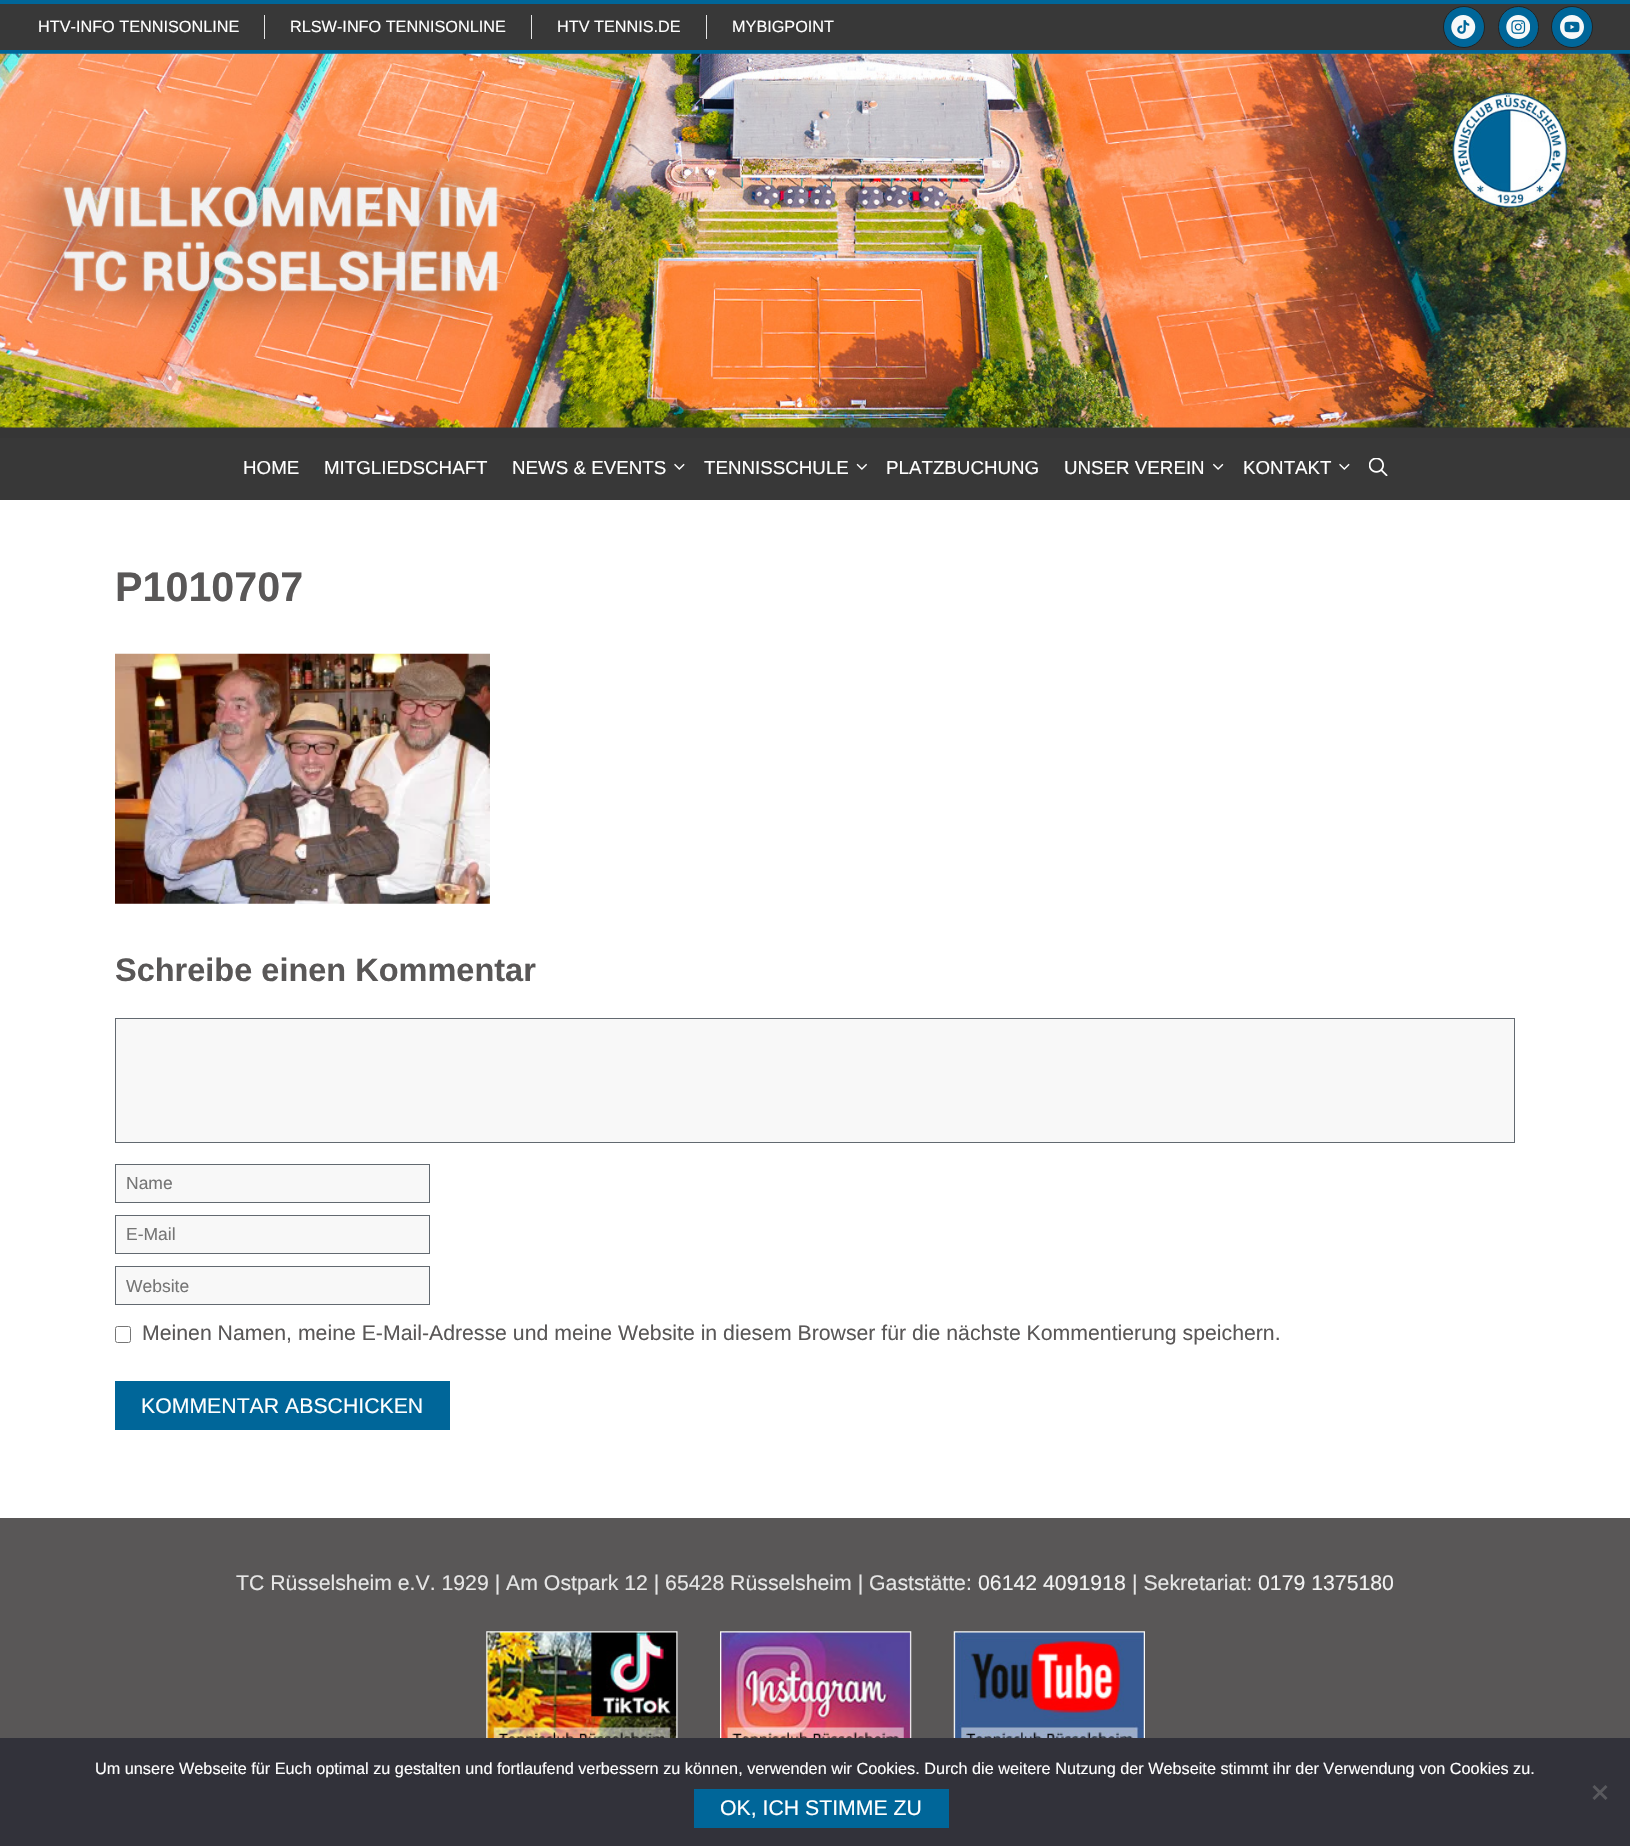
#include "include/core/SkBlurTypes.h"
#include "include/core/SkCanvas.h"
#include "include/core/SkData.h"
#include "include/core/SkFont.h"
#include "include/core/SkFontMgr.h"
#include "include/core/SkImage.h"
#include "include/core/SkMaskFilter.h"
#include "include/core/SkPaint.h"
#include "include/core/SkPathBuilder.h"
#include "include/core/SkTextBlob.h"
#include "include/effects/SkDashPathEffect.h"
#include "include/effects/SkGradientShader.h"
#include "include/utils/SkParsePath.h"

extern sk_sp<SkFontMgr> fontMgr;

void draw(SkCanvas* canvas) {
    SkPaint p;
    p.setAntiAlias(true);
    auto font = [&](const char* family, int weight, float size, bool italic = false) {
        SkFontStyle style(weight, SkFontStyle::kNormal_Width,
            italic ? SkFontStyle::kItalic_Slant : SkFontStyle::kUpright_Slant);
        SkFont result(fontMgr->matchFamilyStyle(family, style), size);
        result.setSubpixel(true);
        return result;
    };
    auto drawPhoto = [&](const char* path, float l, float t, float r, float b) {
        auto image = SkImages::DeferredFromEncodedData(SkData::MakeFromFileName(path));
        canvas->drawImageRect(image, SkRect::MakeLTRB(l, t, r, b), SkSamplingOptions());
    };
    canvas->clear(0xFFFFFFFF);
    {
        const struct { float l, t, r, b; SkColor color; } items[] = {
            {0, 4, 1630, 50, 0xFF383838},
            {0, 0, 1630, 4, 0xFF006699},
            {0, 50, 1630, 54, 0xFF006699},
        };
        for (auto [l, t, r, b, color] : items) {
            p.setColor(color);
            canvas->drawRect(SkRect::MakeLTRB(l, t, r, b), p);
        }
    }
    auto font1 = font("Liberation Sans", 400, 16.25f);
    p.setColor(0xFFFFFFFF);
    canvas->drawString("HTV-INFO TENNISONLINE", 38, 32, font1, p);
    p.setColor(0xFFE6E6E6);
    canvas->drawRect(SkRect::MakeLTRB(264, 15, 265, 39), p);
    p.setColor(0xFFFFFFFF);
    canvas->drawString("RLSW-INFO TENNISONLINE", 290, 32, font1, p);
    p.setColor(0xFFE6E6E6);
    canvas->drawRect(SkRect::MakeLTRB(531, 15, 532, 39), p);
    p.setColor(0xFFFFFFFF);
    canvas->drawString("HTV TENNIS.DE", 557, 32, font1, p);
    p.setColor(0xFFE6E6E6);
    canvas->drawRect(SkRect::MakeLTRB(706, 15, 707, 39), p);
    p.setColor(0xFFFFFFFF);
    canvas->drawString("MYBIGPOINT", 732, 32, font1, p);
    p.setColor(0xFF006699);
    canvas->drawCircle(1464, 27, 20.5f, p);
    p.setStyle(SkPaint::kStroke_Style);
    p.setStrokeWidth(1);
    p.setColor(0xFF222222);
    canvas->drawCircle(1464, 27, 20.5f, p);
    drawPhoto("media/1.png", 1451, 15, 1476, 39);
    p.setStyle(SkPaint::kFill_Style);
    p.setColor(0xFF006699);
    canvas->drawRoundRect(SkRect::MakeLTRB(1498.5f, 6.5f, 1538.5f, 47.5f), 20, 20, p);
    p.setStyle(SkPaint::kStroke_Style);
    p.setColor(0xFF222222);
    canvas->drawRoundRect(SkRect::MakeLTRB(1498.5f, 6.5f, 1538.5f, 47.5f), 20, 20, p);
    drawPhoto("media/2.png", 1506, 15, 1530, 39);
    p.setStyle(SkPaint::kFill_Style);
    p.setColor(0xFF006699);
    canvas->drawCircle(1572, 27, 20.5f, p);
    p.setStyle(SkPaint::kStroke_Style);
    p.setColor(0xFF222222);
    canvas->drawCircle(1572, 27, 20.5f, p);
    drawPhoto("media/3.png", 1560, 15, 1584, 39);
    p.setStyle(SkPaint::kFill_Style);
    p.setColor(0xFF363636);
    canvas->drawRect(SkRect::MakeLTRB(0, 427, 1630, 438), p);
    drawPhoto("media/4.png", 0, 53, 1630, 428);
    p.setColor(0xFF383838);
    canvas->drawRect(SkRect::MakeLTRB(0, 438, 1630, 500), p);
    auto font2 = font("Liberation Sans", 400, 18.75f);
    p.setColor(0xFFFFFFFF);
    {
        const struct { const char* s; float x, y; } items[] = {
            {"HOME", 243, 474},
            {"MITGLIEDSCHAFT", 324, 474},
            {"NEWS & EVENTS", 512, 474},
        };
        for (auto [s, x, y] : items) {
            canvas->drawString(s, x, y, font2, p);
        }
    }
    drawPhoto("media/5.png", 674, 463, 685, 470);
    canvas->drawString("TENNISSCHULE", 704, 474, font2, p);
    drawPhoto("media/6.png", 856, 463, 867, 470);
    canvas->drawString("PLATZBUCHUNG", 886, 474, font2, p);
    canvas->drawString("UNSER VEREIN", 1064, 474, font2, p);
    drawPhoto("media/7.png", 1213, 463, 1224, 470);
    canvas->drawString("KONTAKT", 1243, 474, font2, p);
    drawPhoto("media/5.png", 1339, 463, 1350, 470);
    drawPhoto("media/8.png", 1369, 458, 1388, 476);
    auto font3 = font("Liberation Sans", 700, 41.25f);
    p.setColor(0xFF595757);
    canvas->drawString("P1010707", 115, 601, font3, p);
    drawPhoto("media/9.png", 115, 653, 490, 904);
    auto font4 = font("Liberation Sans", 700, 32.5f);
    canvas->drawString("Schreibe einen Kommentar", 115, 981, font4, p);
    p.setColor(0xFFF8F8F8);
    canvas->drawRect(SkRect::MakeLTRB(115.5f, 1018.5f, 1514.5f, 1142.5f), p);
    p.setStyle(SkPaint::kStroke_Style);
    p.setColor(0xFF626970);
    canvas->drawRect(SkRect::MakeLTRB(115.5f, 1018.5f, 1514.5f, 1142.5f), p);
    p.setStyle(SkPaint::kFill_Style);
    p.setColor(0xFFF8F8F8);
    canvas->drawRect(SkRect::MakeLTRB(115.5f, 1164.5f, 429.5f, 1202.5f), p);
    p.setStyle(SkPaint::kStroke_Style);
    p.setColor(0xFF626970);
    canvas->drawRect(SkRect::MakeLTRB(115.5f, 1164.5f, 429.5f, 1202.5f), p);
    auto font5 = font("Liberation Sans", 400, 17.5f);
    p.setStyle(SkPaint::kFill_Style);
    p.setColor(0xFF757575);
    canvas->drawString("Name", 126, 1189, font5, p);
    p.setColor(0xFFF8F8F8);
    canvas->drawRect(SkRect::MakeLTRB(115.5f, 1215.5f, 429.5f, 1253.5f), p);
    p.setStyle(SkPaint::kStroke_Style);
    p.setColor(0xFF626970);
    canvas->drawRect(SkRect::MakeLTRB(115.5f, 1215.5f, 429.5f, 1253.5f), p);
    p.setStyle(SkPaint::kFill_Style);
    p.setColor(0xFF757575);
    canvas->drawString("E-Mail", 126, 1240, font5, p);
    p.setColor(0xFFF8F8F8);
    canvas->drawRect(SkRect::MakeLTRB(115.5f, 1266.5f, 429.5f, 1304.5f), p);
    p.setStyle(SkPaint::kStroke_Style);
    p.setColor(0xFF626970);
    canvas->drawRect(SkRect::MakeLTRB(115.5f, 1266.5f, 429.5f, 1304.5f), p);
    p.setStyle(SkPaint::kFill_Style);
    p.setColor(0xFF757575);
    canvas->drawString("Website", 126, 1292, font5, p);
    p.setStyle(SkPaint::kStroke_Style);
    p.setColor(0xFF767676);
    canvas->drawRoundRect(SkRect::MakeLTRB(115.5f, 1326.5f, 130.5f, 1342.5f), 2, 2, p);
    auto font6 = font("Liberation Sans", 400, 21.25f);
    p.setStyle(SkPaint::kFill_Style);
    p.setColor(0xFF595757);
    canvas->drawString("Meinen Namen, meine E-Mail-Adresse und meine Website in diesem Browser für die nächste Kommentierung speichern.", 142, 1340, font6, p);
    p.setColor(0xFF006699);
    canvas->drawRect(SkRect::MakeLTRB(115, 1381, 450, 1430), p);
    p.setColor(0xFFFFFFFF);
    canvas->drawString("KOMMENTAR ABSCHICKEN", 141, 1413, font6, p);
    p.setColor(0xFF595757);
    canvas->drawRect(SkRect::MakeLTRB(0, 1518, 1630, 1738), p);
    p.setColor(0xFFE6E6E6);
    canvas->drawString("TC Rüsselsheim e.V. 1929 | Am Ostpark 12 | 65428 Rüsselsheim | Gaststätte:", 236, 1590, font6, p);
    p.setColor(0xFFF2F2F2);
    canvas->drawString("06142 4091918", 978, 1590, font6, p);
    p.setColor(0xFFE6E6E6);
    canvas->drawString("| Sekretariat:", 1132, 1590, font6, p);
    p.setColor(0xFFF2F2F2);
    canvas->drawString("0179 1375180", 1258, 1590, font6, p);
    drawPhoto("media/10.png", 486, 1631, 678, 1738);
    drawPhoto("media/11.png", 720, 1631, 912, 1738);
    drawPhoto("media/12.png", 953, 1631, 1145, 1738);
    p.setColor(0xFF32323A);
    canvas->drawRect(SkRect::MakeLTRB(0, 1738, 1630, 1846), p);
    p.setColor(0xFFFFFFFF);
    canvas->drawString("Um unsere Webseite für Euch optimal zu gestalten und fortlaufend verbessern zu können, verwenden wir Cookies. Durch die weitere Nutzung der Webseite stimmt ihr der Verwendung von Cookies zu.", 95, 1774, font1, p);
    p.setColor(0xFF59595D);
    canvas->drawPath(SkPathBuilder().moveTo(1605.5f, 1785).lineTo(1607.5f, 1787).lineTo(1594.5f, 1800).lineTo(1592.5f, 1798).close().detach(), p);
    canvas->drawPath(SkPathBuilder().moveTo(1592.5f, 1787).lineTo(1594.5f, 1785).lineTo(1607.5f, 1798).lineTo(1605.5f, 1800).close().detach(), p);
    p.setColor(0xFF006699);
    canvas->drawRect(SkRect::MakeLTRB(694, 1789, 949, 1828), p);
    p.setColor(0xFFFFFFFF);
    canvas->drawString("OK, ICH STIMME ZU", 720, 1815, font6, p);
}
